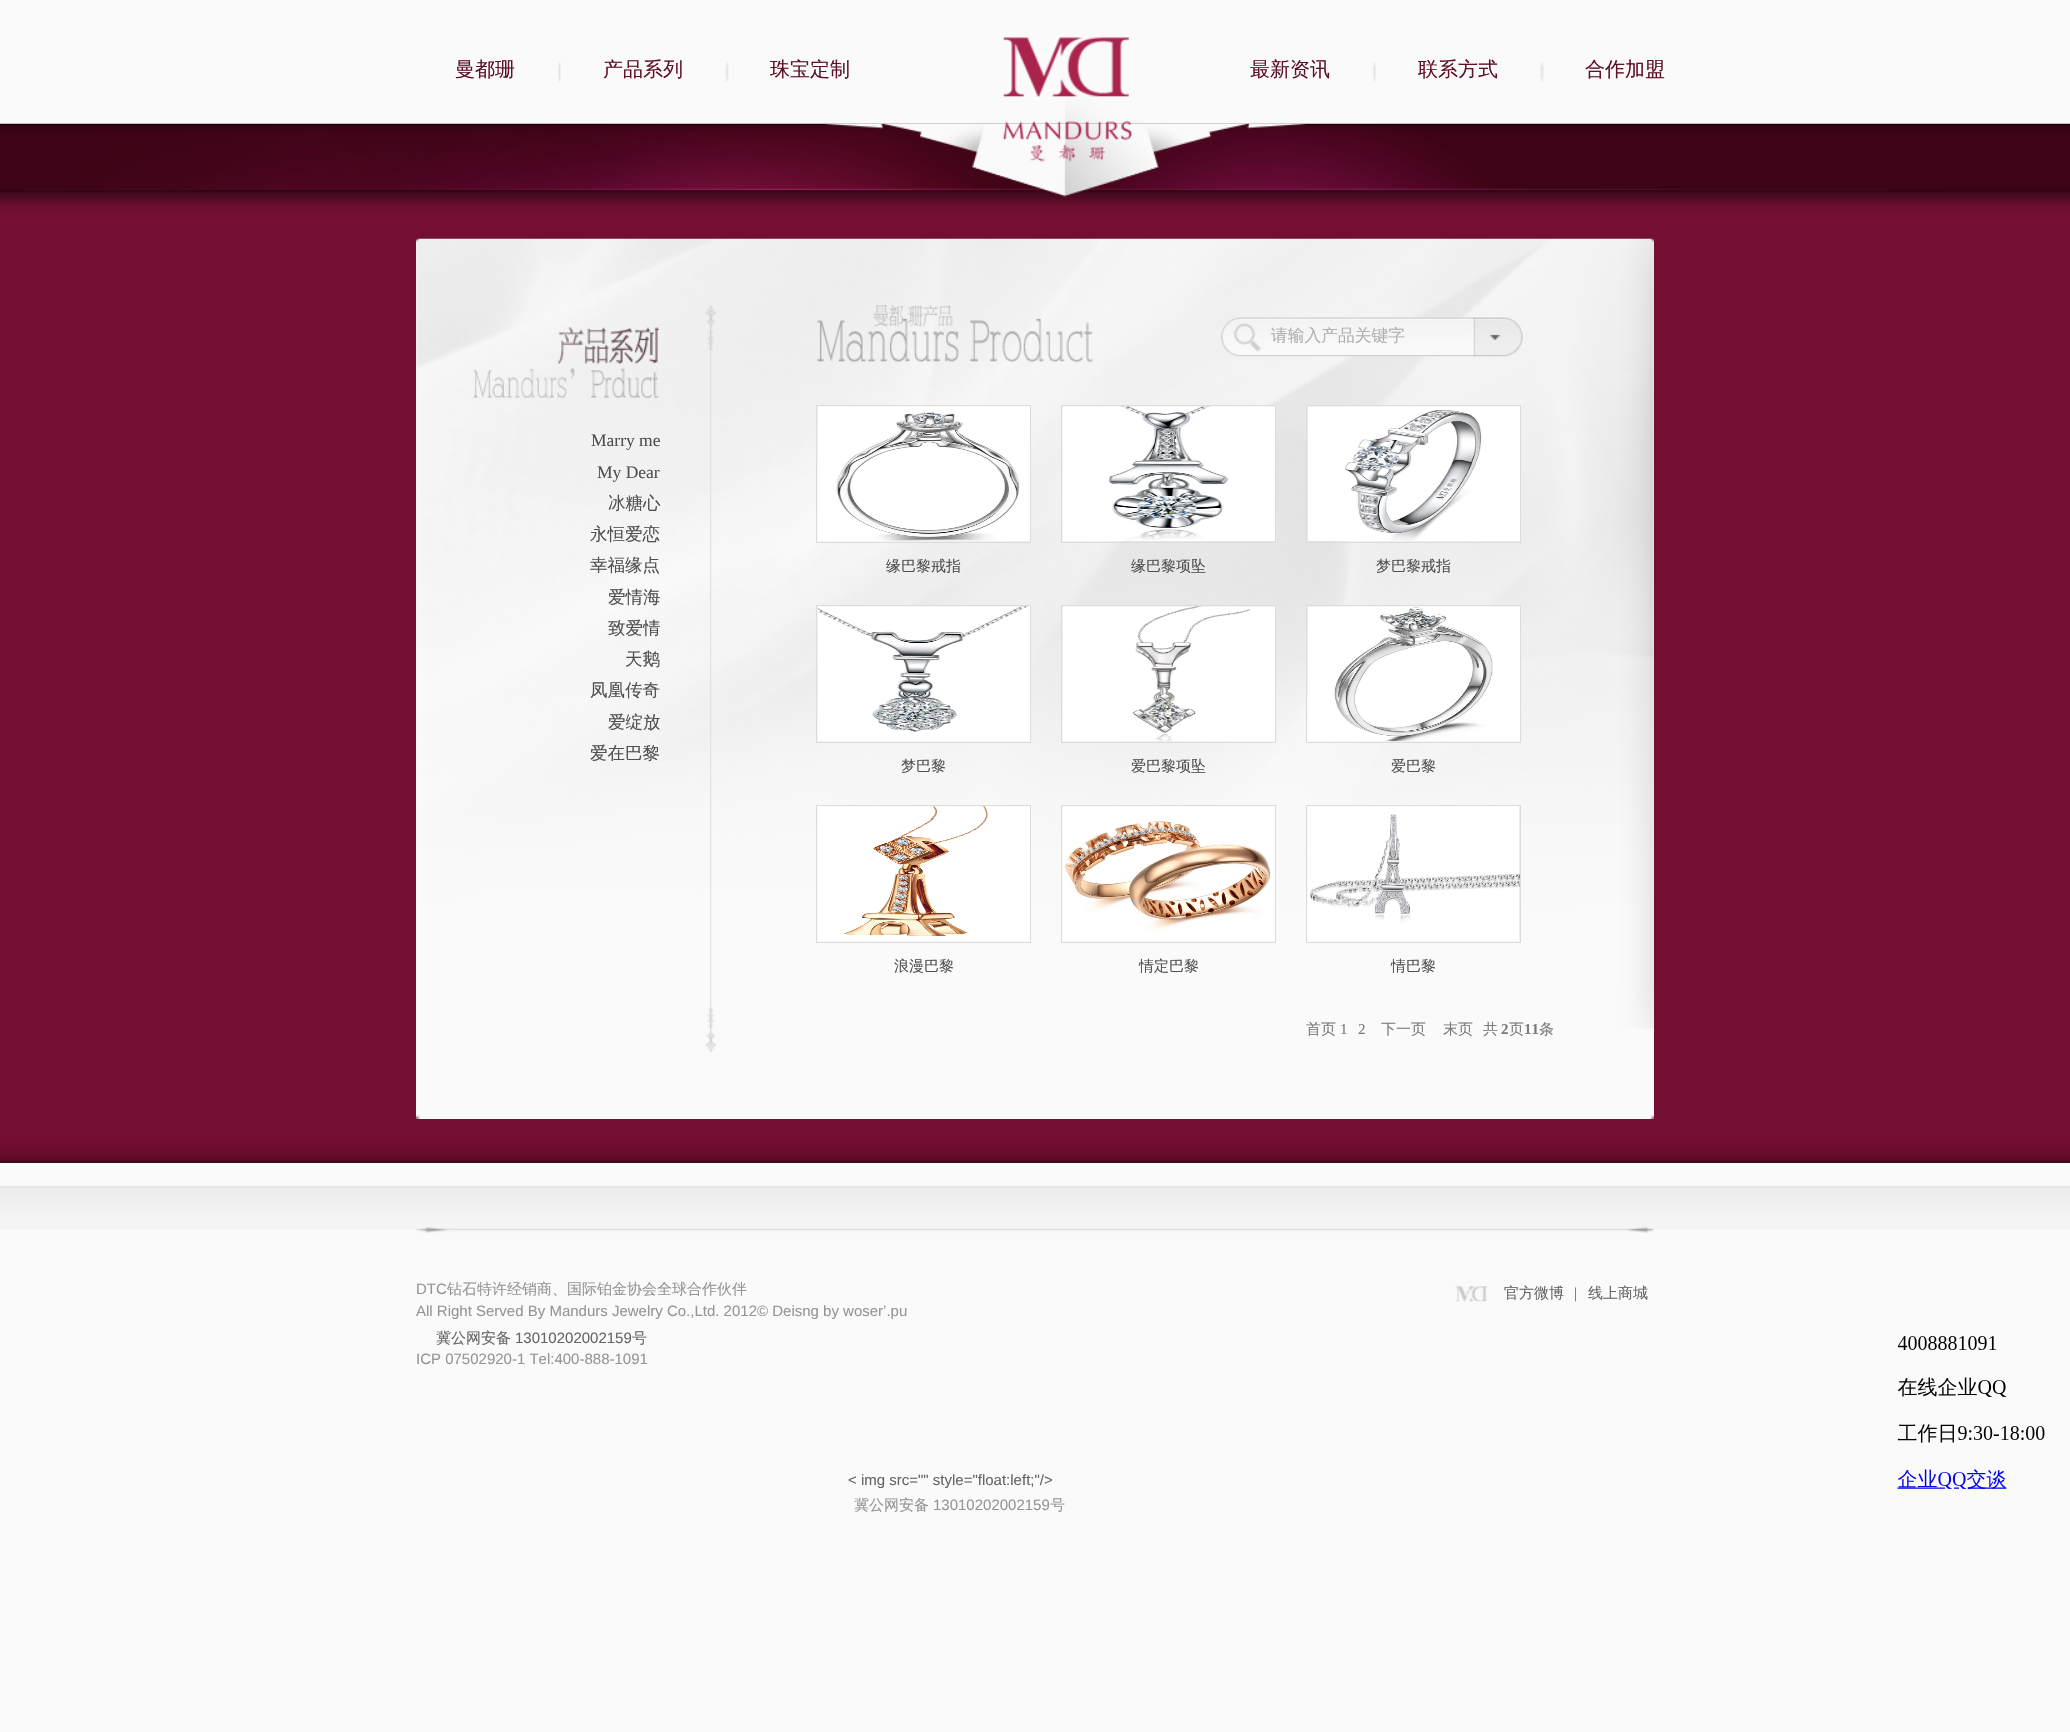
#include "include/core/SkBlurTypes.h"
#include "include/core/SkCanvas.h"
#include "include/core/SkData.h"
#include "include/core/SkFont.h"
#include "include/core/SkFontMgr.h"
#include "include/core/SkImage.h"
#include "include/core/SkMaskFilter.h"
#include "include/core/SkPaint.h"
#include "include/core/SkPathBuilder.h"
#include "include/core/SkTextBlob.h"
#include "include/effects/SkDashPathEffect.h"
#include "include/effects/SkGradientShader.h"
#include "include/utils/SkParsePath.h"

extern sk_sp<SkFontMgr> fontMgr;

void draw(SkCanvas* canvas) {
    SkPaint p;
    p.setAntiAlias(true);
    auto font = [&](const char* family, int weight, float size, bool italic = false) {
        SkFontStyle style(weight, SkFontStyle::kNormal_Width,
            italic ? SkFontStyle::kItalic_Slant : SkFontStyle::kUpright_Slant);
        SkFont result(fontMgr->matchFamilyStyle(family, style), size);
        result.setSubpixel(true);
        return result;
    };
    auto drawPhoto = [&](const char* path, float l, float t, float r, float b) {
        auto image = SkImages::DeferredFromEncodedData(SkData::MakeFromFileName(path));
        canvas->drawImageRect(image, SkRect::MakeLTRB(l, t, r, b), SkSamplingOptions());
    };
    canvas->clear(0xFFFAFAFA);
    p.setColor(0xFF740E33);
    canvas->drawRect(SkRect::MakeLTRB(0, 124, 2070, 1163), p);
    drawPhoto("media/4.png", 0, 123, 2070, 210);
    drawPhoto("media/1.png", 825, 37, 1306, 197);
    auto font1 = font("WenQuanYi Zen Hei", 500, 20);
    p.setColor(0xFF5E1125);
    canvas->drawString("曼都珊", 455, 76, font1, p);
    drawPhoto("media/2.png", 557, 61, 561, 83);
    canvas->drawString("产品系列", 603, 76, font1, p);
    drawPhoto("media/3.png", 725, 61, 729, 82);
    canvas->drawString("珠宝定制", 770, 76, font1, p);
    canvas->drawString("最新资讯", 1250, 76, font1, p);
    drawPhoto("media/2.png", 1372, 61, 1376, 83);
    canvas->drawString("联系方式", 1418, 76, font1, p);
    drawPhoto("media/3.png", 1540, 61, 1544, 82);
    canvas->drawString("合作加盟", 1585, 76, font1, p);
    drawPhoto("media/5.png", 0, 1143, 2070, 1163);
    p.setColor(0xFFFAFAFA);
    canvas->drawRect(SkRect::MakeLTRB(416, 239, 1654, 1119), p);
    drawPhoto("media/6.png", 416, 238, 1654, 1029);
    drawPhoto("media/7.png", 710, 305, 712, 1053);
    drawPhoto("media/8.png", 705, 306, 717, 350);
    drawPhoto("media/9.png", 705, 1007, 717, 1052);
    drawPhoto("media/10.png", 473, 327, 659, 399);
    auto font2 = font("Liberation Serif", 400, 17.5f);
    p.setColor(0xFF505050);
    canvas->drawString("Marry me", 591, 446, font2, p);
    canvas->drawString("My Dear", 597, 478, font2, p);
    auto font3 = font("WenQuanYi Zen Hei", 500, 17.5f);
    {
        const struct { const char* s; float x, y; } items[] = {
            {"冰糖心", 608, 509},
            {"永恒爱恋", 590, 540},
            {"幸福缘点", 590, 571},
            {"爱情海", 608, 603},
            {"致爱情", 608, 634},
            {"天鹅", 625, 665},
            {"凤凰传奇", 590, 696},
            {"爱绽放", 608, 728},
            {"爱在巴黎", 590, 759},
        };
        for (auto [s, x, y] : items) {
            canvas->drawString(s, x, y, font3, p);
        }
    }
    drawPhoto("media/11.png", 817, 305, 1093, 363);
    drawPhoto("media/12.png", 1221, 317, 1523, 357);
    auto font4 = font("WenQuanYi Zen Hei", 500, 16.75f);
    p.setColor(0xFFB0B0B0);
    canvas->drawString("请输入产品关键字", 1271, 341, font4, p);
    p.setStyle(SkPaint::kStroke_Style);
    p.setStrokeWidth(1);
    p.setColor(0xFFDCDCDC);
    canvas->drawRect(SkRect::MakeLTRB(816.5f, 405.5f, 1030.5f, 542.5f), p);
    drawPhoto("media/13.png", 818, 406, 1030, 541);
    auto font5 = font("WenQuanYi Zen Hei", 500, 15);
    p.setStyle(SkPaint::kFill_Style);
    p.setColor(0xFF505050);
    canvas->drawString("缘巴黎戒指", 886, 571, font5, p);
    p.setStyle(SkPaint::kStroke_Style);
    p.setColor(0xFFDCDCDC);
    canvas->drawRect(SkRect::MakeLTRB(1061.5f, 405.5f, 1275.5f, 542.5f), p);
    drawPhoto("media/14.png", 1062, 406, 1275, 541);
    p.setStyle(SkPaint::kFill_Style);
    p.setColor(0xFF505050);
    canvas->drawString("缘巴黎项坠", 1131, 571, font5, p);
    p.setStyle(SkPaint::kStroke_Style);
    p.setColor(0xFFDCDCDC);
    canvas->drawRect(SkRect::MakeLTRB(1306.5f, 405.5f, 1520.5f, 542.5f), p);
    drawPhoto("media/15.png", 1307, 406, 1520, 541);
    p.setStyle(SkPaint::kFill_Style);
    p.setColor(0xFF505050);
    canvas->drawString("梦巴黎戒指", 1376, 571, font5, p);
    p.setStyle(SkPaint::kStroke_Style);
    p.setColor(0xFFDCDCDC);
    canvas->drawRect(SkRect::MakeLTRB(816.5f, 605.5f, 1030.5f, 742.5f), p);
    drawPhoto("media/16.png", 817, 606, 1030, 741);
    p.setStyle(SkPaint::kFill_Style);
    p.setColor(0xFF505050);
    canvas->drawString("梦巴黎", 901, 771, font5, p);
    p.setStyle(SkPaint::kStroke_Style);
    p.setColor(0xFFDCDCDC);
    canvas->drawRect(SkRect::MakeLTRB(1061.5f, 605.5f, 1275.5f, 742.5f), p);
    drawPhoto("media/17.png", 1062, 606, 1275, 741);
    p.setStyle(SkPaint::kFill_Style);
    p.setColor(0xFF505050);
    canvas->drawString("爱巴黎项坠", 1131, 771, font5, p);
    p.setStyle(SkPaint::kStroke_Style);
    p.setColor(0xFFDCDCDC);
    canvas->drawRect(SkRect::MakeLTRB(1306.5f, 605.5f, 1520.5f, 742.5f), p);
    drawPhoto("media/18.png", 1307, 606, 1520, 742);
    p.setStyle(SkPaint::kFill_Style);
    p.setColor(0xFF505050);
    canvas->drawString("爱巴黎", 1391, 771, font5, p);
    p.setStyle(SkPaint::kStroke_Style);
    p.setColor(0xFFDCDCDC);
    canvas->drawRect(SkRect::MakeLTRB(816.5f, 805.5f, 1030.5f, 942.5f), p);
    drawPhoto("media/19.png", 818, 806, 1030, 941);
    p.setStyle(SkPaint::kFill_Style);
    p.setColor(0xFF505050);
    canvas->drawString("浪漫巴黎", 894, 971, font5, p);
    p.setStyle(SkPaint::kStroke_Style);
    p.setColor(0xFFDCDCDC);
    canvas->drawRect(SkRect::MakeLTRB(1061.5f, 805.5f, 1275.5f, 942.5f), p);
    drawPhoto("media/20.png", 1063, 806, 1275, 941);
    p.setStyle(SkPaint::kFill_Style);
    p.setColor(0xFF505050);
    canvas->drawString("情定巴黎", 1139, 971, font5, p);
    p.setStyle(SkPaint::kStroke_Style);
    p.setColor(0xFFDCDCDC);
    canvas->drawRect(SkRect::MakeLTRB(1306.5f, 805.5f, 1520.5f, 942.5f), p);
    drawPhoto("media/21.png", 1308, 806, 1520, 941);
    p.setStyle(SkPaint::kFill_Style);
    p.setColor(0xFF505050);
    canvas->drawString("情巴黎", 1391, 971, font5, p);
    p.setColor(0xFF7B7B7B);
    canvas->drawString("首页", 1306, 1034, font5, p);
    auto font6 = font("Liberation Serif", 400, 15);
    canvas->drawString("1", 1340, 1034, font6, p);
    canvas->drawString("2", 1358, 1034, font6, p);
    {
        const struct { const char* s; float x, y; } items[] = {
            {"下一页", 1381, 1034},
            {"末页", 1443, 1034},
            {"共", 1483, 1034},
        };
        for (auto [s, x, y] : items) {
            canvas->drawString(s, x, y, font5, p);
        }
    }
    auto font7 = font("Liberation Serif", 700, 15);
    canvas->drawString("2", 1501, 1034, font7, p);
    canvas->drawString("页", 1509, 1034, font5, p);
    canvas->drawString("11", 1524, 1034, font7, p);
    canvas->drawString("条", 1539, 1034, font5, p);
    drawPhoto("media/22.png", 416, 1115, 1654, 1119);
    drawPhoto("media/23.png", 0, 1186, 2070, 1229);
    drawPhoto("media/24.png", 416, 1227, 1654, 1233);
    auto font8 = font("Liberation Sans", 400, 15);
    p.setColor(0xFF959595);
    canvas->drawString("DTC", 416, 1294, font8, p);
    canvas->drawString("钻石特许经销商、国际铂金协会全球合作伙伴", 447, 1294, font5, p);
    canvas->drawString("All Right Served By Mandurs Jewelry Co.,Ltd. 2012© Deisng by woser’.pu", 416, 1316, font8, p);
    p.setColor(0xFF656565);
    canvas->drawString("冀公网安备", 436, 1343, font5, p);
    canvas->drawString("13010202002159", 515, 1343, font8, p);
    canvas->drawString("号", 632, 1343, font5, p);
    p.setColor(0xFF959595);
    canvas->drawString("ICP 07502920-1 Tel:400-888-1091", 416, 1364, font8, p);
    drawPhoto("media/25.png", 1455, 1286, 1488, 1302);
    p.setColor(0xFF656565);
    canvas->drawString("官方微博", 1504, 1298, font5, p);
    canvas->drawString("|", 1574, 1298, font6, p);
    canvas->drawString("线上商城", 1588, 1298, font5, p);
    drawPhoto("media/26.png", 1897, 1336, 2045, 1490);
    canvas->drawString("< img src=\"\" style=\"float:left;\"/>", 848, 1485, font8, p);
    p.setColor(0xFF959595);
    canvas->drawString("冀公网安备", 854, 1510, font5, p);
    canvas->drawString("13010202002159", 933, 1510, font8, p);
    canvas->drawString("号", 1050, 1510, font5, p);
}
